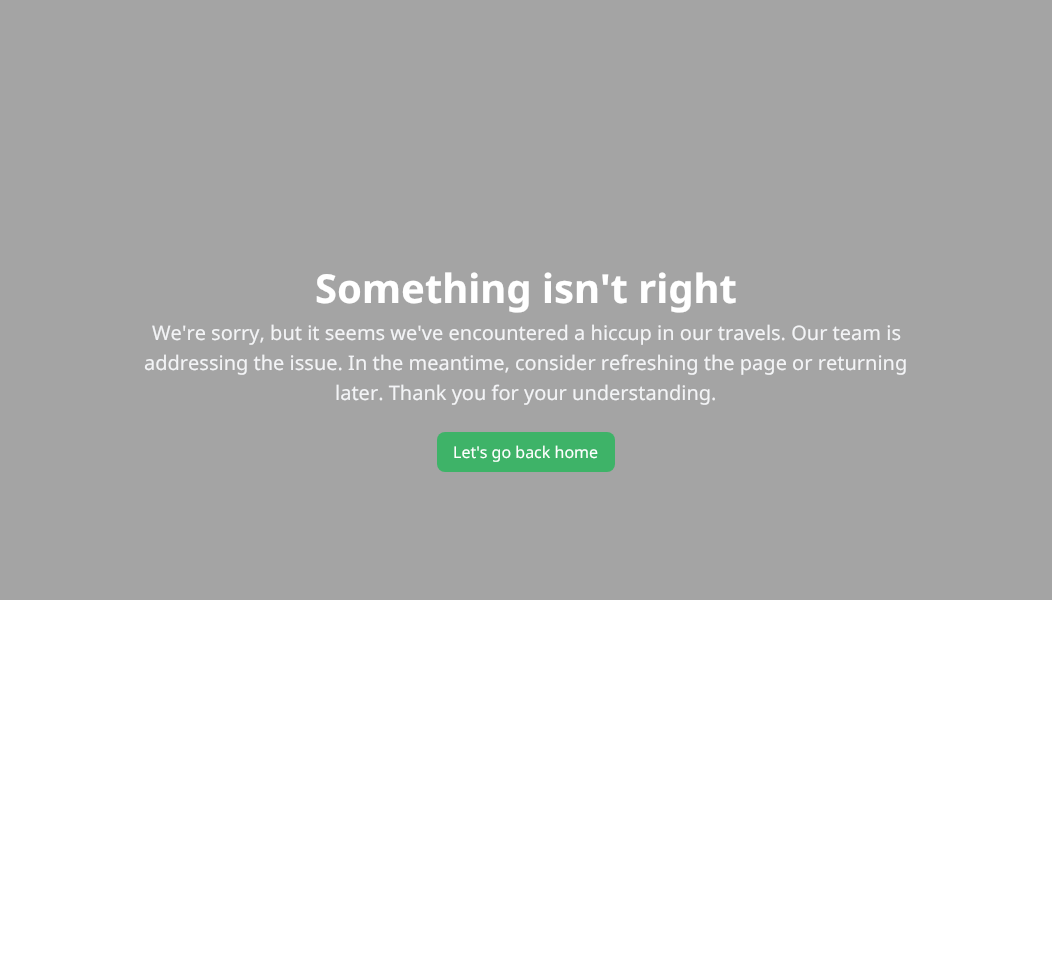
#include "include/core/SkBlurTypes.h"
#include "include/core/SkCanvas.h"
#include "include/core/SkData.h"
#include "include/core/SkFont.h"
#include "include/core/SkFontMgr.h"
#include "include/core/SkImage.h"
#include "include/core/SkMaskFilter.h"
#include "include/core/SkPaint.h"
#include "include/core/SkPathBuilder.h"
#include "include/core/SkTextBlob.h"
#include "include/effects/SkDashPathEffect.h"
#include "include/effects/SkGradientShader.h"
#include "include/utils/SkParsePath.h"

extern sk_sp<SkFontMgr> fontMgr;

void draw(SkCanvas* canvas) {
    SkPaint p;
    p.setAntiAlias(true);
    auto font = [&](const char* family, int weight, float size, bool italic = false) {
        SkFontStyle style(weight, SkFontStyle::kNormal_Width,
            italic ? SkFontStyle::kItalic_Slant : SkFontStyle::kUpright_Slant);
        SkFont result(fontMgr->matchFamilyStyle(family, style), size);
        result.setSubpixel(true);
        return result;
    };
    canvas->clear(0xFFFFFFFF);
    p.setColor(0xFFA4A4A4);
    canvas->drawRect(SkRect::MakeLTRB(0, 0, 1052, 600), p);
    auto font1 = font("Noto Sans", 700, 40);
    p.setColor(0xFFFFFFFF);
    canvas->drawString("Something isn't right", 315, 303, font1, p);
    auto font2 = font("Noto Sans", 400, 20);
    p.setColor(0xFFF3F4F6);
    {
        const struct { const char* s; float x, y; } items[] = {
            {"We're sorry, but it seems we've encountered a hiccup in our travels. Our team is", 152, 340},
            {"addressing the issue. In the meantime, consider refreshing the page or returning", 144, 370},
            {"later. Thank you for your understanding.", 335, 400},
        };
        for (auto [s, x, y] : items) {
            canvas->drawString(s, x, y, font2, p);
        }
    }
    p.setColor(0xFF3EB368);
    canvas->drawRoundRect(SkRect::MakeLTRB(437, 432, 615, 472), 8, 8, p);
    auto font3 = font("Noto Sans", 400, 16);
    p.setColor(0xFFFFFFFF);
    canvas->drawString("Let's go back home", 453, 458, font3, p);
}
